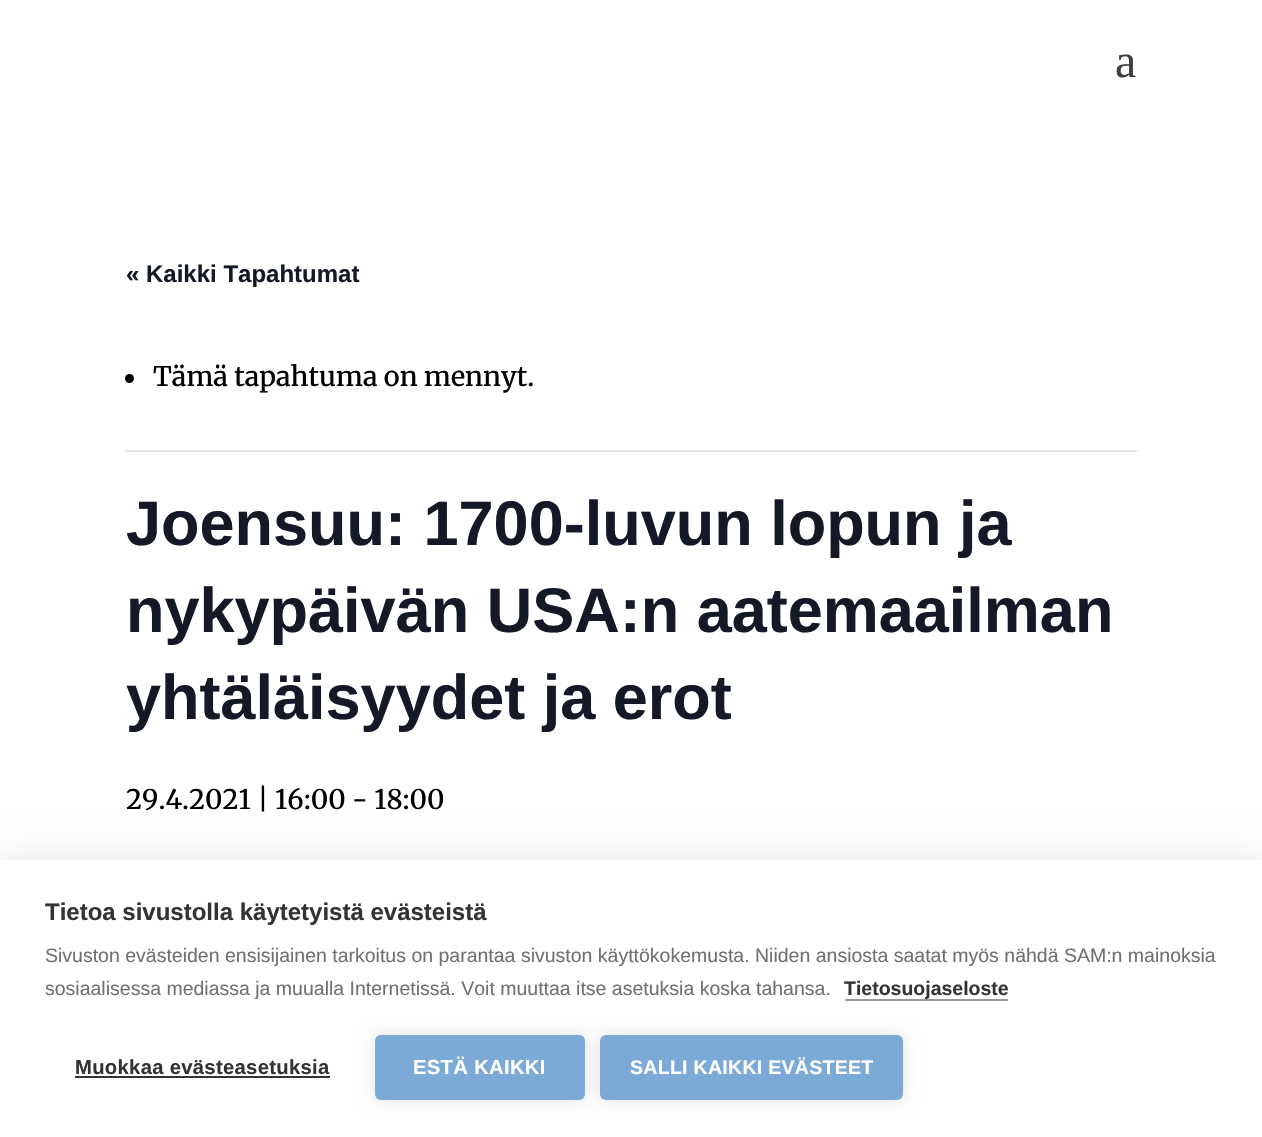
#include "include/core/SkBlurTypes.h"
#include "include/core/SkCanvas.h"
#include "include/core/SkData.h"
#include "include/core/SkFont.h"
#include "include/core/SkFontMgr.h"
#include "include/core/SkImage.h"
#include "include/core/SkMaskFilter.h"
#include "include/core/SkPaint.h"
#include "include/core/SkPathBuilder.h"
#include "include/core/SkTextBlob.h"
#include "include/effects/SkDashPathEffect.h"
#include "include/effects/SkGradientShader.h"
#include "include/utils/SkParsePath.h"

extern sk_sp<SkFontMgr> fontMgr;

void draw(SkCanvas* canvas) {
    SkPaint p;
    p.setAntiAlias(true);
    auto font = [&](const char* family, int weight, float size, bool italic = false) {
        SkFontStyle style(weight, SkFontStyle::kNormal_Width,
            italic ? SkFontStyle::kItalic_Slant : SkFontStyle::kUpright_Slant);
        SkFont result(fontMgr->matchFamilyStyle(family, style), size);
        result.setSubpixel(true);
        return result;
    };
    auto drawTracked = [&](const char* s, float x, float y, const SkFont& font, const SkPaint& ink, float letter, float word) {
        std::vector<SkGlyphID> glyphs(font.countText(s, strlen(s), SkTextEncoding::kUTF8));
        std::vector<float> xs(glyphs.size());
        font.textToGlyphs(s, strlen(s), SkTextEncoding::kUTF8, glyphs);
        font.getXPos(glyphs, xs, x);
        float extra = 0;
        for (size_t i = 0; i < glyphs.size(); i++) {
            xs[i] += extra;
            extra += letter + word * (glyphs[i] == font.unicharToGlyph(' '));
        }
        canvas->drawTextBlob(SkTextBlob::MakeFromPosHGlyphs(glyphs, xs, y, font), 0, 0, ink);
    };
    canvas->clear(0xFFFFFFFF);
    auto font1 = font("Liberation Serif", 400, 48);
    p.setColor(0xFF3F3F3F);
    canvas->drawString("a", 1115, 77, font1, p);
    auto font2 = font("Liberation Sans", 700, 24);
    p.setColor(0xFF141827);
    canvas->drawString("« Kaikki Tapahtumat", 126, 282, font2, p);
    p.setColor(0xFFE4E4E4);
    canvas->drawRect(SkRect::MakeLTRB(126, 450, 1137, 452), p);
    p.setColor(0xFF000000);
    canvas->drawCircle(129.5f, 378.5f, 4.5f, p);
    auto font3 = font("Merriweather", 500, 27);
    canvas->drawString("Tämä tapahtuma on mennyt.", 153, 386, font3, p);
    auto font4 = font("Liberation Sans", 700, 63);
    p.setColor(0xFF141827);
    {
        const struct { const char* s; float x, y; } items[] = {
            {"Joensuu: 1700-luvun lopun ja", 126, 545},
            {"nykypäivän USA:n aatemaailman", 126, 632},
            {"yhtäläisyydet ja erot", 126, 719},
        };
        for (auto [s, x, y] : items) {
            canvas->drawString(s, x, y, font4, p);
        }
    }
    p.setColor(0xFF000000);
    canvas->drawString("29.4.2021 | 16:00 - 18:00", 126, 809, font3, p);
    p.setColor(0x1A000000);
    p.setMaskFilter(SkMaskFilter::MakeBlur(kNormal_SkBlurStyle, 15));
    canvas->drawRect(SkRect::MakeLTRB(0, 860, 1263, 1137), p);
    p.setMaskFilter(nullptr);
    p.setColor(0xFFFFFFFF);
    canvas->drawRect(SkRect::MakeLTRB(0, 860, 1262, 1137), p);
    p.setColor(0xFF333333);
    canvas->drawString("Tietoa sivustolla käytetyistä evästeistä", 45, 920, font2, p);
    auto font5 = font("Liberation Sans", 400, 19.5f);
    p.setColor(0xFF707070);
    canvas->drawString("Sivuston evästeiden ensisijainen tarkoitus on parantaa sivuston käyttökokemusta. Niiden ansiosta saatat myös nähdä SAM:n mainoksia", 45, 962, font5, p);
    canvas->drawString("sosiaalisessa mediassa ja muualla Internetissä. Voit muuttaa itse asetuksia koska tahansa.", 45, 995, font5, p);
    p.setColor(0xFF999999);
    canvas->drawRect(SkRect::MakeLTRB(845, 999, 1008, 1001), p);
    auto font6 = font("Liberation Sans", 700, 19.5f);
    p.setColor(0xFF333333);
    canvas->drawString("Tietosuojaseloste", 844, 995, font6, p);
    auto font7 = font("Liberation Sans", 700, 20.25f);
    drawTracked("Muokkaa evästeasetuksia", 75, 1074, font7, p, 0.3f, 0);
    canvas->drawRect(SkRect::MakeLTRB(75, 1076, 330, 1078), p);
    p.setColor(0x1F000000);
    p.setMaskFilter(SkMaskFilter::MakeBlur(kNormal_SkBlurStyle, 7.5f));
    canvas->drawRoundRect(SkRect::MakeLTRB(375, 1035, 585, 1100), 6, 6, p);
    p.setMaskFilter(nullptr);
    p.setColor(0xFF7CAAD7);
    canvas->drawRoundRect(SkRect::MakeLTRB(375, 1035, 585, 1100), 6, 6, p);
    p.setColor(0xFFFFFFFF);
    drawTracked("ESTÄ KAIKKI", 413, 1074, font7, p, 0.3f, 0);
    p.setColor(0x1F000000);
    p.setMaskFilter(SkMaskFilter::MakeBlur(kNormal_SkBlurStyle, 7.5f));
    canvas->drawRoundRect(SkRect::MakeLTRB(600, 1035, 903, 1100), 6, 6, p);
    p.setMaskFilter(nullptr);
    p.setColor(0xFF7CAAD7);
    canvas->drawRoundRect(SkRect::MakeLTRB(600, 1035, 903, 1100), 6, 6, p);
    p.setColor(0xFFFFFFFF);
    drawTracked("SALLI KAIKKI EVÄSTEET", 630, 1074, font6, p, 0.3f, 0);
}
